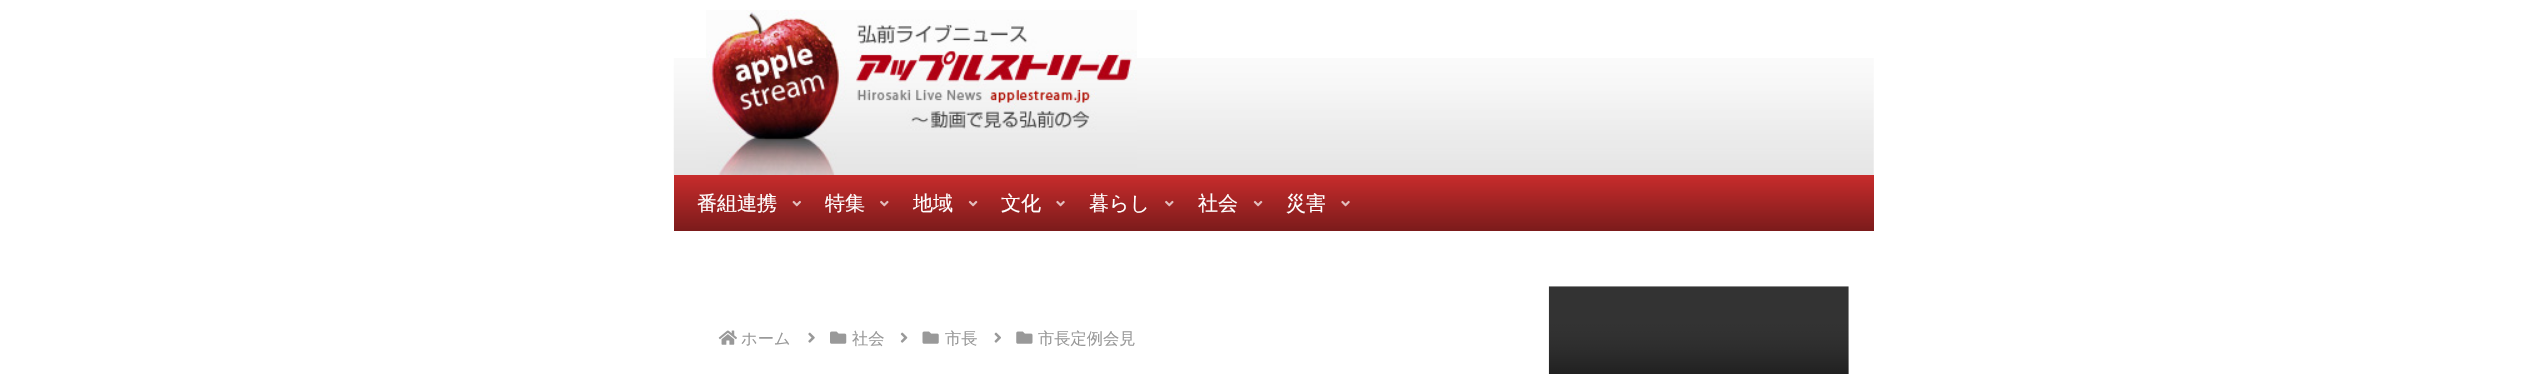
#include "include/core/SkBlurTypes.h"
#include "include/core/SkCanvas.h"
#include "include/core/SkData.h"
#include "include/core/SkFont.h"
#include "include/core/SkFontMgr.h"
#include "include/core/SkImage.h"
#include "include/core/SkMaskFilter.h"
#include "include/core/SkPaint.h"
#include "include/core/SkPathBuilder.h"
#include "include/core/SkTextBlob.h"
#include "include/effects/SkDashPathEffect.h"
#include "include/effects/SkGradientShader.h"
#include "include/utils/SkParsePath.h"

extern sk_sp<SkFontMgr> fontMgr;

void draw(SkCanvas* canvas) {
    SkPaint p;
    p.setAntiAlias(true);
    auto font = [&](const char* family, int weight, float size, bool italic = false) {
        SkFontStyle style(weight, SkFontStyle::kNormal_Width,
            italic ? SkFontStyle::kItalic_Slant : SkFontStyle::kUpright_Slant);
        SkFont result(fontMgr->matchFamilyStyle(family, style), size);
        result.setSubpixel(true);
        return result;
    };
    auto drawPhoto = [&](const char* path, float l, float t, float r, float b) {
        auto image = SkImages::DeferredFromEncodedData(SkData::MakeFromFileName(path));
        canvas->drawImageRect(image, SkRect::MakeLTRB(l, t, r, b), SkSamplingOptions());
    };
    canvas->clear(0xFFFFFFFF);
    drawPhoto("media/1.png", 673, 58, 1874, 175);
    drawPhoto("media/2.png", 706, 10, 1137, 175);
    {
        const SkColor colors[] = {0xFF7B1B1B, 0xFFC82C2C};
        const float stops[] = {0, 1};
        const SkPoint ends[] = {{1274, 231}, {1274, 175}};
        p.setShader(SkGradientShader::MakeLinear(ends, colors, stops, 2, SkTileMode::kClamp));
        p.setAlpha(255);
    }
    canvas->drawRect(SkRect::MakeLTRB(674, 175, 1874, 231), p);
    auto font1 = font("WenQuanYi Zen Hei", 500, 20);
    p.setShader(nullptr);
    p.setColor(0xFFFFFFFF);
    canvas->drawString("番組連携", 697, 210, font1, p);
    drawPhoto("media/3.png", 792, 200, 801, 207);
    canvas->drawString("特集", 825, 210, font1, p);
    drawPhoto("media/4.png", 880, 200, 889, 207);
    canvas->drawString("地域", 913, 210, font1, p);
    drawPhoto("media/5.png", 968, 200, 978, 207);
    canvas->drawString("文化", 1001, 210, font1, p);
    drawPhoto("media/6.png", 1056, 200, 1065, 207);
    canvas->drawString("暮らし", 1089, 210, font1, p);
    drawPhoto("media/4.png", 1165, 200, 1174, 207);
    canvas->drawString("社会", 1198, 210, font1, p);
    drawPhoto("media/5.png", 1253, 200, 1263, 207);
    canvas->drawString("災害", 1286, 210, font1, p);
    drawPhoto("media/6.png", 1341, 200, 1350, 207);
    drawPhoto("media/7.png", 718, 330, 737, 345);
    auto font2 = font("WenQuanYi Zen Hei", 500, 16.25f);
    p.setColor(0xFF999999);
    canvas->drawString("ホーム", 741, 344, font2, p);
    drawPhoto("media/8.png", 808, 332, 815, 343);
    drawPhoto("media/9.png", 830, 331, 847, 344);
    canvas->drawString("社会", 852, 344, font2, p);
    drawPhoto("media/10.png", 900, 332, 908, 343);
    drawPhoto("media/11.png", 922, 331, 939, 344);
    canvas->drawString("市長", 945, 344, font2, p);
    drawPhoto("media/12.png", 994, 332, 1001, 343);
    drawPhoto("media/13.png", 1016, 331, 1033, 344);
    canvas->drawString("市長定例会見", 1038, 344, font2, p);
    drawPhoto("media/14.png", 1548, 286, 1849, 374);
}
